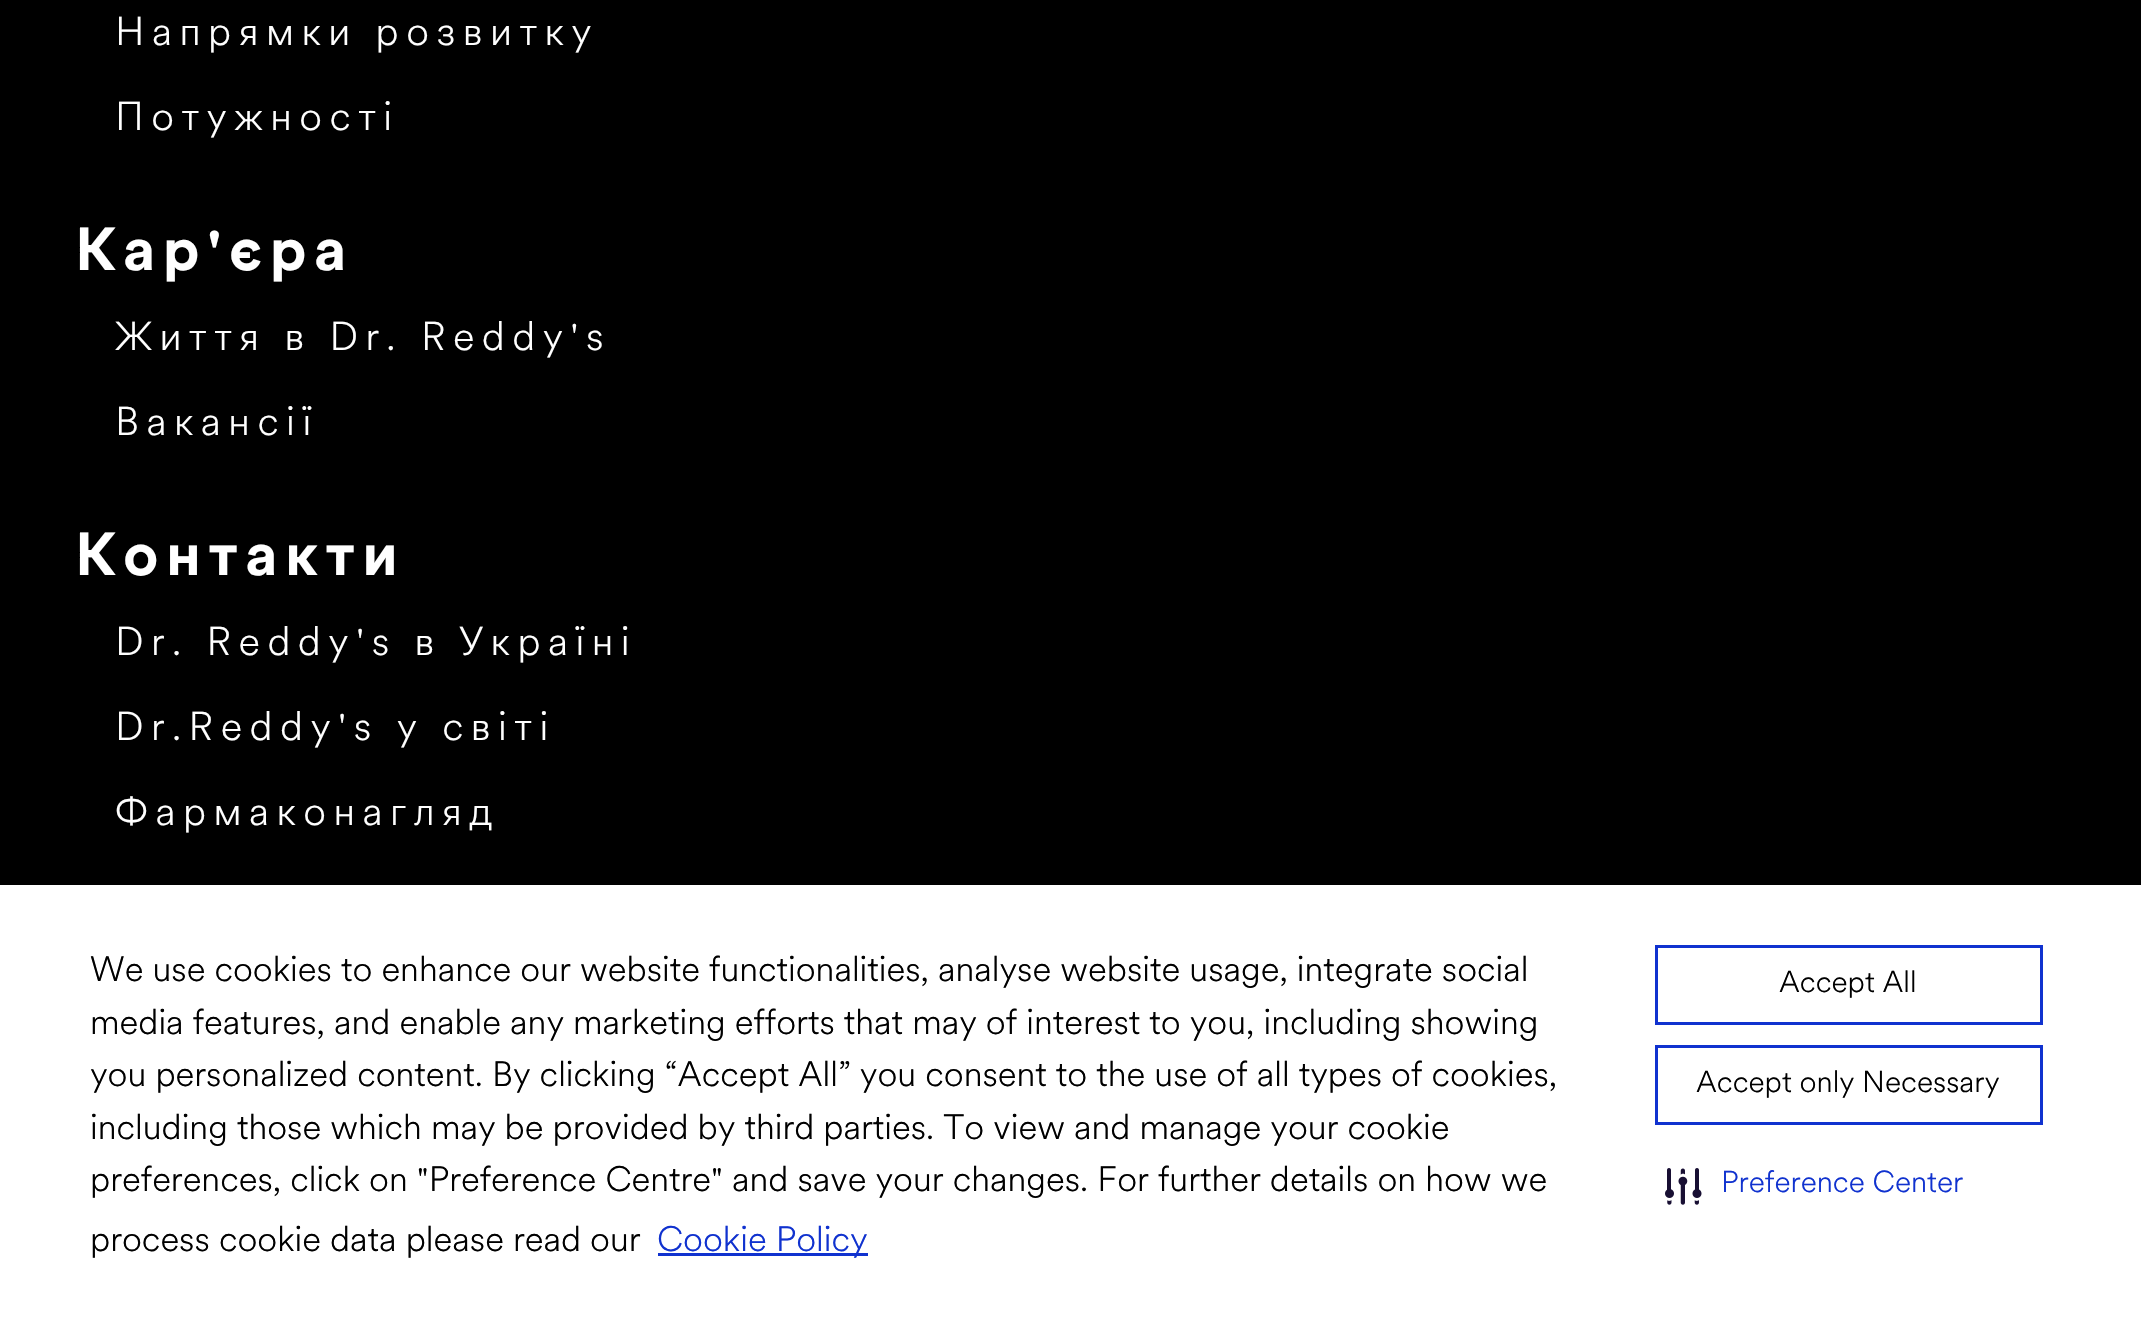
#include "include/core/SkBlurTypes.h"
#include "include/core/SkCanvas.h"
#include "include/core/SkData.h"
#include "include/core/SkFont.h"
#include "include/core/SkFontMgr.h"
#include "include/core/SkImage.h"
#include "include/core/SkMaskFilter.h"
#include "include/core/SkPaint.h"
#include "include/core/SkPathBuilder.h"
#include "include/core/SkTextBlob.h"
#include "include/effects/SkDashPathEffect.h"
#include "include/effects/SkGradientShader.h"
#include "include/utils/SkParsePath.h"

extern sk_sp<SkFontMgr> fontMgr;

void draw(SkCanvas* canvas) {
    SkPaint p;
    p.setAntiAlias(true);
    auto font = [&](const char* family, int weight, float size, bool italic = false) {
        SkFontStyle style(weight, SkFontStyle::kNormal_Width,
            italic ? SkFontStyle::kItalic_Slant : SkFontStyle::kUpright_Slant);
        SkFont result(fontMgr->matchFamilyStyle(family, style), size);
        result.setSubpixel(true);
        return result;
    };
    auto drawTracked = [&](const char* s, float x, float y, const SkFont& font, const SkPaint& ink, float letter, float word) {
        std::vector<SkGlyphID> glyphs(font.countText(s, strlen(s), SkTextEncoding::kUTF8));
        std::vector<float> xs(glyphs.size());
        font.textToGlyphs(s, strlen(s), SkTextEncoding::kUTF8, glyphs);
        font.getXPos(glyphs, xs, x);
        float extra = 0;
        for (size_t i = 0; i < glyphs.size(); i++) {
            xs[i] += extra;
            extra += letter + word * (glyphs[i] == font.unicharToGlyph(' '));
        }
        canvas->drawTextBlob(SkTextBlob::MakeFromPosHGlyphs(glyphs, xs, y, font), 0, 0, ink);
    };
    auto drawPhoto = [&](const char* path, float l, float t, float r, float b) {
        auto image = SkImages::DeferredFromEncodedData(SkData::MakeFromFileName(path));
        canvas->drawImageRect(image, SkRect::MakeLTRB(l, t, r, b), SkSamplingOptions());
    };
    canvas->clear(0xFF000000);
    auto font1 = font("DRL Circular", 300, 40);
    p.setColor(0xFFFFFFFF);
    drawTracked("Напрямки розвитку", 115, 45, font1, p, 7.5f, 0);
    drawTracked("Потужності", 115, 130, font1, p, 7.5f, 0);
    auto font2 = font("DRL Circular", 700, 60);
    drawTracked("Кар'єра", 75, 270, font2, p, 7.5f, 0);
    drawTracked("Життя в Dr. Reddy's", 115, 350, font1, p, 7.5f, 0);
    drawTracked("Вакансії", 115, 435, font1, p, 7.5f, 0);
    drawTracked("Контакти", 75, 575, font2, p, 7.5f, 0);
    {
        const struct { const char* s; float x, y; } items[] = {
            {"Dr. Reddy's в Україні", 115, 655},
            {"Dr.Reddy's у світі", 115, 740},
            {"Фармаконагляд", 115, 825},
        };
        for (auto [s, x, y] : items) {
            drawTracked(s, x, y, font1, p, 7.5f, 0);
        }
    }
    canvas->drawRect(SkRect::MakeLTRB(0, 885, 2141, 1335), p);
    auto font3 = font("DRL Circular", 300, 35);
    p.setColor(0xFF000000);
    {
        const struct { const char* s; float x, y; } items[] = {
            {"We use cookies to enhance our website functionalities, analyse website usage, integrate social", 90, 981},
            {"media features, and enable any marketing efforts that may of interest to you, including showing", 90, 1034},
            {"you personalized content. By clicking “Accept All” you consent to the use of all types of cookies,", 90, 1086},
            {"including those which may be provided by third parties. To view and manage your cookie", 90, 1139},
            {"preferences, click on \"Preference Centre\" and save your changes. For further details on how we", 90, 1191},
            {"process cookie data please read our", 90, 1251},
        };
        for (auto [s, x, y] : items) {
            canvas->drawString(s, x, y, font3, p);
        }
    }
    p.setColor(0xFF1032CF);
    canvas->drawRect(SkRect::MakeLTRB(658, 1253, 868, 1256), p);
    canvas->drawString("Cookie Policy", 657, 1251, font3, p);
    p.setStyle(SkPaint::kStroke_Style);
    p.setStrokeWidth(3);
    canvas->drawRect(SkRect::MakeLTRB(1656.5f, 946.5f, 2041.5f, 1023.5f), p);
    auto font4 = font("DRL Circular", 300, 30);
    p.setStyle(SkPaint::kFill_Style);
    p.setColor(0xFF000000);
    canvas->drawString("Accept All", 1779, 992, font4, p);
    p.setStyle(SkPaint::kStroke_Style);
    p.setColor(0xFF1032CF);
    canvas->drawRect(SkRect::MakeLTRB(1656.5f, 1046.5f, 2041.5f, 1123.5f), p);
    p.setStyle(SkPaint::kFill_Style);
    p.setColor(0xFF000000);
    canvas->drawString("Accept only Necessary", 1696, 1092, font4, p);
    drawPhoto("media/1.png", 1665, 1168, 1702, 1205);
    p.setColor(0xFF1032CF);
    canvas->drawString("Preference Center", 1721, 1192, font4, p);
}
